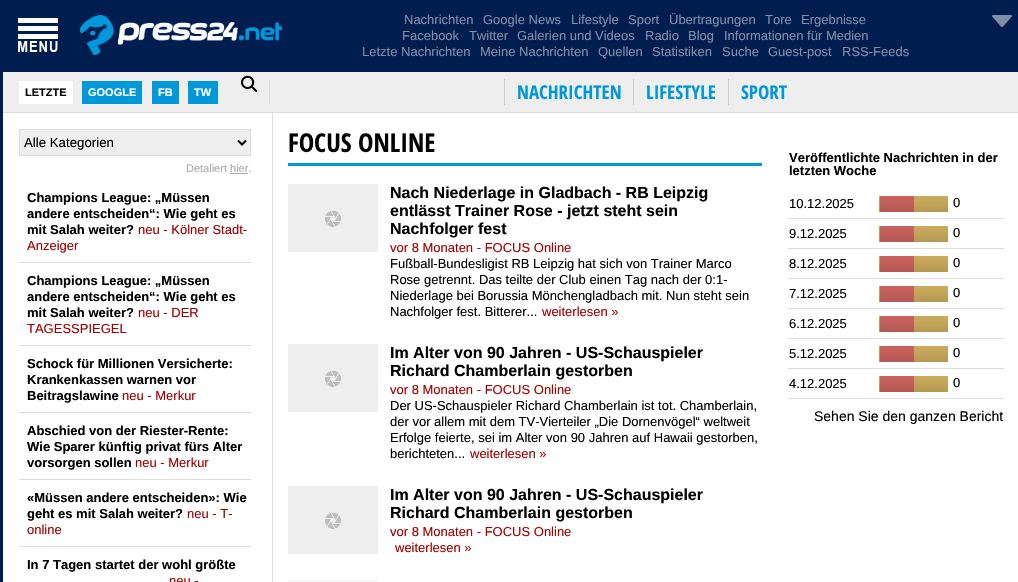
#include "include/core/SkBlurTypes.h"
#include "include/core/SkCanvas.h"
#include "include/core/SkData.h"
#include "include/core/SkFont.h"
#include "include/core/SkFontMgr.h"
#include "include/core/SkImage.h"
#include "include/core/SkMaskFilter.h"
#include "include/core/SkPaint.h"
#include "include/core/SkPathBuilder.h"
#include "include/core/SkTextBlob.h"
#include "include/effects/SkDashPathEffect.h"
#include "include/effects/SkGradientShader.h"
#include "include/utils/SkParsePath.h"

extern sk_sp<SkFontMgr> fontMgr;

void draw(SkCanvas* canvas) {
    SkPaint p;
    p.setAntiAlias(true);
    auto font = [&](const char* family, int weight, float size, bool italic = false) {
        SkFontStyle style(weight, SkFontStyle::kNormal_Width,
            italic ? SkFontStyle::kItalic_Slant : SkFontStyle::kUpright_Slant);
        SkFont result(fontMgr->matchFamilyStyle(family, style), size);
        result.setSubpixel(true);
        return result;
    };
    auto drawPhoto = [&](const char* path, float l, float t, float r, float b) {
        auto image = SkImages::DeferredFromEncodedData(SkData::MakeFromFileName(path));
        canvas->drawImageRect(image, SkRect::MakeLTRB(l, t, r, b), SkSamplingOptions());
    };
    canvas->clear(0xFFFFFFFF);
    p.setColor(0xFF001D4F);
    canvas->drawRect(SkRect::MakeLTRB(0, 0, 3, 582), p);
    canvas->drawRect(SkRect::MakeLTRB(3, 0, 1018, 72), p);
    drawPhoto("media/1.png", 18, 18, 58, 52);
    drawPhoto("media/2.png", 80, 15, 282, 55);
    auto font1 = font("Liberation Sans", 400, 13);
    p.setColor(0xFF808EA7);
    {
        const struct { const char* s; float x, y; } items[] = {
            {"Nachrichten", 404, 24},
            {"Google News", 483, 24},
            {"Lifestyle", 571, 24},
            {"Sport", 628, 24},
            {"Übertragungen", 669, 24},
            {"Tore", 765, 24},
            {"Ergebnisse", 801, 24},
            {"Facebook", 402, 40},
            {"Twitter", 469, 40},
            {"Galerien und Videos", 517, 40},
            {"Radio", 645, 40},
            {"Blog", 688, 40},
            {"Informationen für Medien", 724, 40},
            {"Letzte Nachrichten", 362, 56},
            {"Meine Nachrichten", 480, 56},
            {"Quellen", 598, 56},
            {"Statistiken", 652, 56},
            {"Suche", 722, 56},
            {"Guest-post", 768, 56},
            {"RSS-Feeds", 842, 56},
        };
        for (auto [s, x, y] : items) {
            canvas->drawString(s, x, y, font1, p);
        }
    }
    drawPhoto("media/3.png", 992, 15, 1012, 27);
    {
        const struct { float l, t, r, b; SkColor color; } items[] = {
            {3, 72, 1018, 112, 0xFFEEEEEE},
            {3, 112, 1018, 113, 0xFFDDDDDD},
            {269, 80, 270, 104, 0xFFDDDDDD},
            {19, 81, 73, 104, 0xFFFFFFFF},
        };
        for (auto [l, t, r, b, color] : items) {
            p.setColor(color);
            canvas->drawRect(SkRect::MakeLTRB(l, t, r, b), p);
        }
    }
    auto font2 = font("Liberation Sans", 700, 11);
    p.setColor(0xFF000000);
    canvas->drawString("LETZTE", 25, 96, font2, p);
    p.setColor(0xFF0098D8);
    canvas->drawRect(SkRect::MakeLTRB(82, 81, 142, 104), p);
    p.setColor(0xFFFFFFFF);
    canvas->drawString("GOOGLE", 88, 96, font2, p);
    p.setColor(0xFF0098D8);
    canvas->drawRect(SkRect::MakeLTRB(152, 81, 179, 104), p);
    p.setColor(0xFFFFFFFF);
    canvas->drawString("FB", 158, 96, font2, p);
    p.setColor(0xFF0098D8);
    canvas->drawRect(SkRect::MakeLTRB(188, 81, 218, 104), p);
    p.setColor(0xFFFFFFFF);
    canvas->drawString("TW", 194, 96, font2, p);
    drawPhoto("media/4.png", 241, 75, 258, 92);
    auto font3 = font("Open Sans Condensed", 700, 19);
    p.setColor(0xFF0098D8);
    canvas->drawString("NACHRICHTEN", 517, 99, font3, p);
    p.setColor(0xFFCCCCCC);
    canvas->drawRect(SkRect::MakeLTRB(504, 79, 505, 105), p);
    p.setColor(0xFF0098D8);
    canvas->drawString("LIFESTYLE", 646, 99, font3, p);
    p.setColor(0xFFCCCCCC);
    canvas->drawRect(SkRect::MakeLTRB(633, 79, 634, 105), p);
    p.setColor(0xFF0098D8);
    canvas->drawString("SPORT", 741, 99, font3, p);
    p.setColor(0xFFCCCCCC);
    canvas->drawRect(SkRect::MakeLTRB(728, 79, 729, 105), p);
    p.setColor(0xFFDDDDDD);
    canvas->drawRect(SkRect::MakeLTRB(272, 113, 273, 582), p);
    p.setColor(0xFFEFEFEF);
    canvas->drawRect(SkRect::MakeLTRB(19.5f, 129.5f, 250.5f, 155.5f), p);
    p.setStyle(SkPaint::kStroke_Style);
    p.setStrokeWidth(1);
    p.setColor(0xFFDDDDDD);
    canvas->drawRect(SkRect::MakeLTRB(19.5f, 129.5f, 250.5f, 155.5f), p);
    p.setStrokeWidth(2);
    p.setColor(0xFF000000);
    canvas->drawPath(SkPathBuilder().moveTo(238, 140.5f).lineTo(242, 144.5f).lineTo(246, 140.5f).detach(), p);
    auto font4 = font("Liberation Sans", 400, 13.25f);
    p.setStyle(SkPaint::kFill_Style);
    canvas->drawString("Alle Kategorien", 24, 147, font4, p);
    auto font5 = font("Liberation Sans", 400, 11);
    p.setColor(0xFFAAAAAA);
    canvas->drawString("Detaliert hier.", 186, 172, font5, p);
    canvas->drawRect(SkRect::MakeLTRB(230, 173, 248, 174), p);
    p.setColor(0xFFDDDDDD);
    canvas->drawRect(SkRect::MakeLTRB(19, 262, 251, 263), p);
    auto font6 = font("Liberation Sans", 700, 13);
    p.setColor(0xFF000000);
    {
        const struct { const char* s; float x, y; } items[] = {
            {"Champions League: „Müssen", 27, 202},
            {"andere entscheiden“: Wie geht es", 27, 218},
            {"mit Salah weiter?", 27, 234},
        };
        for (auto [s, x, y] : items) {
            canvas->drawString(s, x, y, font6, p);
        }
    }
    p.setColor(0xFFA20000);
    canvas->drawString("neu - Kölner Stadt-", 138, 234, font1, p);
    canvas->drawString("Anzeiger", 27, 250, font1, p);
    p.setColor(0xFFDDDDDD);
    canvas->drawRect(SkRect::MakeLTRB(19, 345, 251, 346), p);
    p.setColor(0xFF000000);
    {
        const struct { const char* s; float x, y; } items[] = {
            {"Champions League: „Müssen", 27, 285},
            {"andere entscheiden“: Wie geht es", 27, 301},
            {"mit Salah weiter?", 27, 317},
        };
        for (auto [s, x, y] : items) {
            canvas->drawString(s, x, y, font6, p);
        }
    }
    p.setColor(0xFFA20000);
    canvas->drawString("neu - DER", 138, 317, font1, p);
    canvas->drawString("TAGESSPIEGEL", 27, 333, font1, p);
    p.setColor(0xFFDDDDDD);
    canvas->drawRect(SkRect::MakeLTRB(19, 412, 251, 413), p);
    p.setColor(0xFF000000);
    {
        const struct { const char* s; float x, y; } items[] = {
            {"Schock für Millionen Versicherte:", 27, 368},
            {"Krankenkassen warnen vor", 27, 384},
            {"Beitragslawine", 27, 400},
        };
        for (auto [s, x, y] : items) {
            canvas->drawString(s, x, y, font6, p);
        }
    }
    p.setColor(0xFFA20000);
    canvas->drawString("neu - Merkur", 122, 400, font1, p);
    p.setColor(0xFFDDDDDD);
    canvas->drawRect(SkRect::MakeLTRB(19, 479, 251, 480), p);
    p.setColor(0xFF000000);
    {
        const struct { const char* s; float x, y; } items[] = {
            {"Abschied von der Riester-Rente:", 27, 435},
            {"Wie Sparer künftig privat fürs Alter", 27, 451},
            {"vorsorgen sollen", 27, 467},
        };
        for (auto [s, x, y] : items) {
            canvas->drawString(s, x, y, font6, p);
        }
    }
    p.setColor(0xFFA20000);
    canvas->drawString("neu - Merkur", 135, 467, font1, p);
    p.setColor(0xFFDDDDDD);
    canvas->drawRect(SkRect::MakeLTRB(19, 546, 251, 547), p);
    p.setColor(0xFF000000);
    canvas->drawString("«Müssen andere entscheiden»: Wie", 27, 502, font6, p);
    canvas->drawString("geht es mit Salah weiter?", 27, 518, font6, p);
    p.setColor(0xFFA20000);
    canvas->drawString("neu - T-", 187, 518, font1, p);
    canvas->drawString("online", 27, 534, font1, p);
    p.setColor(0xFF000000);
    canvas->drawString("In 7 Tagen startet der wohl größte", 27, 569, font6, p);
    p.setColor(0xFFA20000);
    canvas->drawString("neu -", 169, 585, font1, p);
    p.setColor(0xFF0098D8);
    canvas->drawRect(SkRect::MakeLTRB(288, 163, 762, 166), p);
    auto font7 = font("Open Sans Condensed", 700, 26);
    p.setColor(0xFF000000);
    canvas->drawString("FOCUS ONLINE", 288, 152, font7, p);
    drawPhoto("media/5.png", 288, 184, 378, 252);
    auto font8 = font("Liberation Sans", 700, 16);
    {
        const struct { const char* s; float x, y; } items[] = {
            {"Nach Niederlage in Gladbach - RB Leipzig", 390, 198},
            {"entlässt Trainer Rose - jetzt steht sein", 390, 216},
            {"Nachfolger fest", 390, 234},
        };
        for (auto [s, x, y] : items) {
            canvas->drawString(s, x, y, font8, p);
        }
    }
    p.setColor(0xFFA20000);
    canvas->drawString("vor 8 Monaten - FOCUS Online", 390, 252, font1, p);
    p.setColor(0xFF000000);
    {
        const struct { const char* s; float x, y; } items[] = {
            {"Fußball-Bundesligist RB Leipzig hat sich von Trainer Marco", 390, 268},
            {"Rose getrennt. Das teilte der Club einen Tag nach der 0:1-", 390, 284},
            {"Niederlage bei Borussia Mönchengladbach mit. Nun steht sein", 390, 300},
            {"Nachfolger fest. Bitterer...", 390, 316},
        };
        for (auto [s, x, y] : items) {
            canvas->drawString(s, x, y, font1, p);
        }
    }
    p.setColor(0xFFA20000);
    canvas->drawString("weiterlesen »", 542, 316, font1, p);
    drawPhoto("media/5.png", 288, 344, 378, 412);
    p.setColor(0xFF000000);
    canvas->drawString("Im Alter von 90 Jahren - US-Schauspieler", 390, 358, font8, p);
    canvas->drawString("Richard Chamberlain gestorben", 390, 376, font8, p);
    p.setColor(0xFFA20000);
    canvas->drawString("vor 8 Monaten - FOCUS Online", 390, 394, font1, p);
    p.setColor(0xFF000000);
    {
        const struct { const char* s; float x, y; } items[] = {
            {"Der US-Schauspieler Richard Chamberlain ist tot. Chamberlain,", 390, 410},
            {"der vor allem mit dem TV-Vierteiler „Die Dornenvögel“ weltweit", 390, 426},
            {"Erfolge feierte, sei im Alter von 90 Jahren auf Hawaii gestorben,", 390, 442},
            {"berichteten...", 390, 458},
        };
        for (auto [s, x, y] : items) {
            canvas->drawString(s, x, y, font1, p);
        }
    }
    p.setColor(0xFFA20000);
    canvas->drawString("weiterlesen »", 470, 458, font1, p);
    drawPhoto("media/5.png", 288, 486, 378, 554);
    p.setColor(0xFF000000);
    canvas->drawString("Im Alter von 90 Jahren - US-Schauspieler", 390, 500, font8, p);
    canvas->drawString("Richard Chamberlain gestorben", 390, 518, font8, p);
    p.setColor(0xFFA20000);
    canvas->drawString("vor 8 Monaten - FOCUS Online", 390, 536, font1, p);
    canvas->drawString("weiterlesen »", 395, 552, font1, p);
    p.setColor(0xFFEEEEEE);
    canvas->drawRect(SkRect::MakeLTRB(288, 580, 378, 581), p);
    p.setColor(0xFF000000);
    canvas->drawString("Veröffentlichte Nachrichten in der", 789, 162, font6, p);
    canvas->drawString("letzten Woche", 789, 175, font6, p);
    canvas->drawString("10.12.2025", 789, 208, font1, p);
    p.setColor(0xFFDDDDDD);
    canvas->drawRect(SkRect::MakeLTRB(788, 218, 1004, 219), p);
    drawPhoto("media/6.png", 879, 196, 880, 212);
    drawPhoto("media/7.png", 880, 196, 914, 212);
    drawPhoto("media/8.png", 914, 196, 948, 212);
    p.setColor(0xFF000000);
    canvas->drawString("0", 953, 207, font1, p);
    canvas->drawString("9.12.2025", 789, 238, font1, p);
    p.setColor(0xFFDDDDDD);
    canvas->drawRect(SkRect::MakeLTRB(788, 248, 1004, 249), p);
    drawPhoto("media/6.png", 879, 226, 880, 242);
    drawPhoto("media/7.png", 880, 226, 914, 242);
    drawPhoto("media/8.png", 914, 226, 948, 242);
    p.setColor(0xFF000000);
    canvas->drawString("0", 953, 237, font1, p);
    canvas->drawString("8.12.2025", 789, 268, font1, p);
    p.setColor(0xFFDDDDDD);
    canvas->drawRect(SkRect::MakeLTRB(788, 278, 1004, 279), p);
    drawPhoto("media/6.png", 879, 256, 880, 272);
    drawPhoto("media/7.png", 880, 256, 914, 272);
    drawPhoto("media/8.png", 914, 256, 948, 272);
    p.setColor(0xFF000000);
    canvas->drawString("0", 953, 267, font1, p);
    canvas->drawString("7.12.2025", 789, 298, font1, p);
    p.setColor(0xFFDDDDDD);
    canvas->drawRect(SkRect::MakeLTRB(788, 308, 1004, 309), p);
    drawPhoto("media/6.png", 879, 286, 880, 302);
    drawPhoto("media/7.png", 880, 286, 914, 302);
    drawPhoto("media/8.png", 914, 286, 948, 302);
    p.setColor(0xFF000000);
    canvas->drawString("0", 953, 297, font1, p);
    canvas->drawString("6.12.2025", 789, 328, font1, p);
    p.setColor(0xFFDDDDDD);
    canvas->drawRect(SkRect::MakeLTRB(788, 338, 1004, 339), p);
    drawPhoto("media/6.png", 879, 316, 880, 332);
    drawPhoto("media/7.png", 880, 316, 914, 332);
    drawPhoto("media/8.png", 914, 316, 948, 332);
    p.setColor(0xFF000000);
    canvas->drawString("0", 953, 327, font1, p);
    canvas->drawString("5.12.2025", 789, 358, font1, p);
    p.setColor(0xFFDDDDDD);
    canvas->drawRect(SkRect::MakeLTRB(788, 368, 1004, 369), p);
    drawPhoto("media/6.png", 879, 346, 880, 362);
    drawPhoto("media/7.png", 880, 346, 914, 362);
    drawPhoto("media/8.png", 914, 346, 948, 362);
    p.setColor(0xFF000000);
    canvas->drawString("0", 953, 357, font1, p);
    canvas->drawString("4.12.2025", 789, 388, font1, p);
    p.setColor(0xFFDDDDDD);
    canvas->drawRect(SkRect::MakeLTRB(788, 398, 1004, 399), p);
    drawPhoto("media/6.png", 879, 376, 880, 392);
    drawPhoto("media/7.png", 880, 376, 914, 392);
    drawPhoto("media/8.png", 914, 376, 948, 392);
    p.setColor(0xFF000000);
    canvas->drawString("0", 953, 387, font1, p);
    auto font9 = font("Liberation Sans", 400, 14);
    canvas->drawString("Sehen Sie den ganzen Bericht", 814, 421, font9, p);
}
